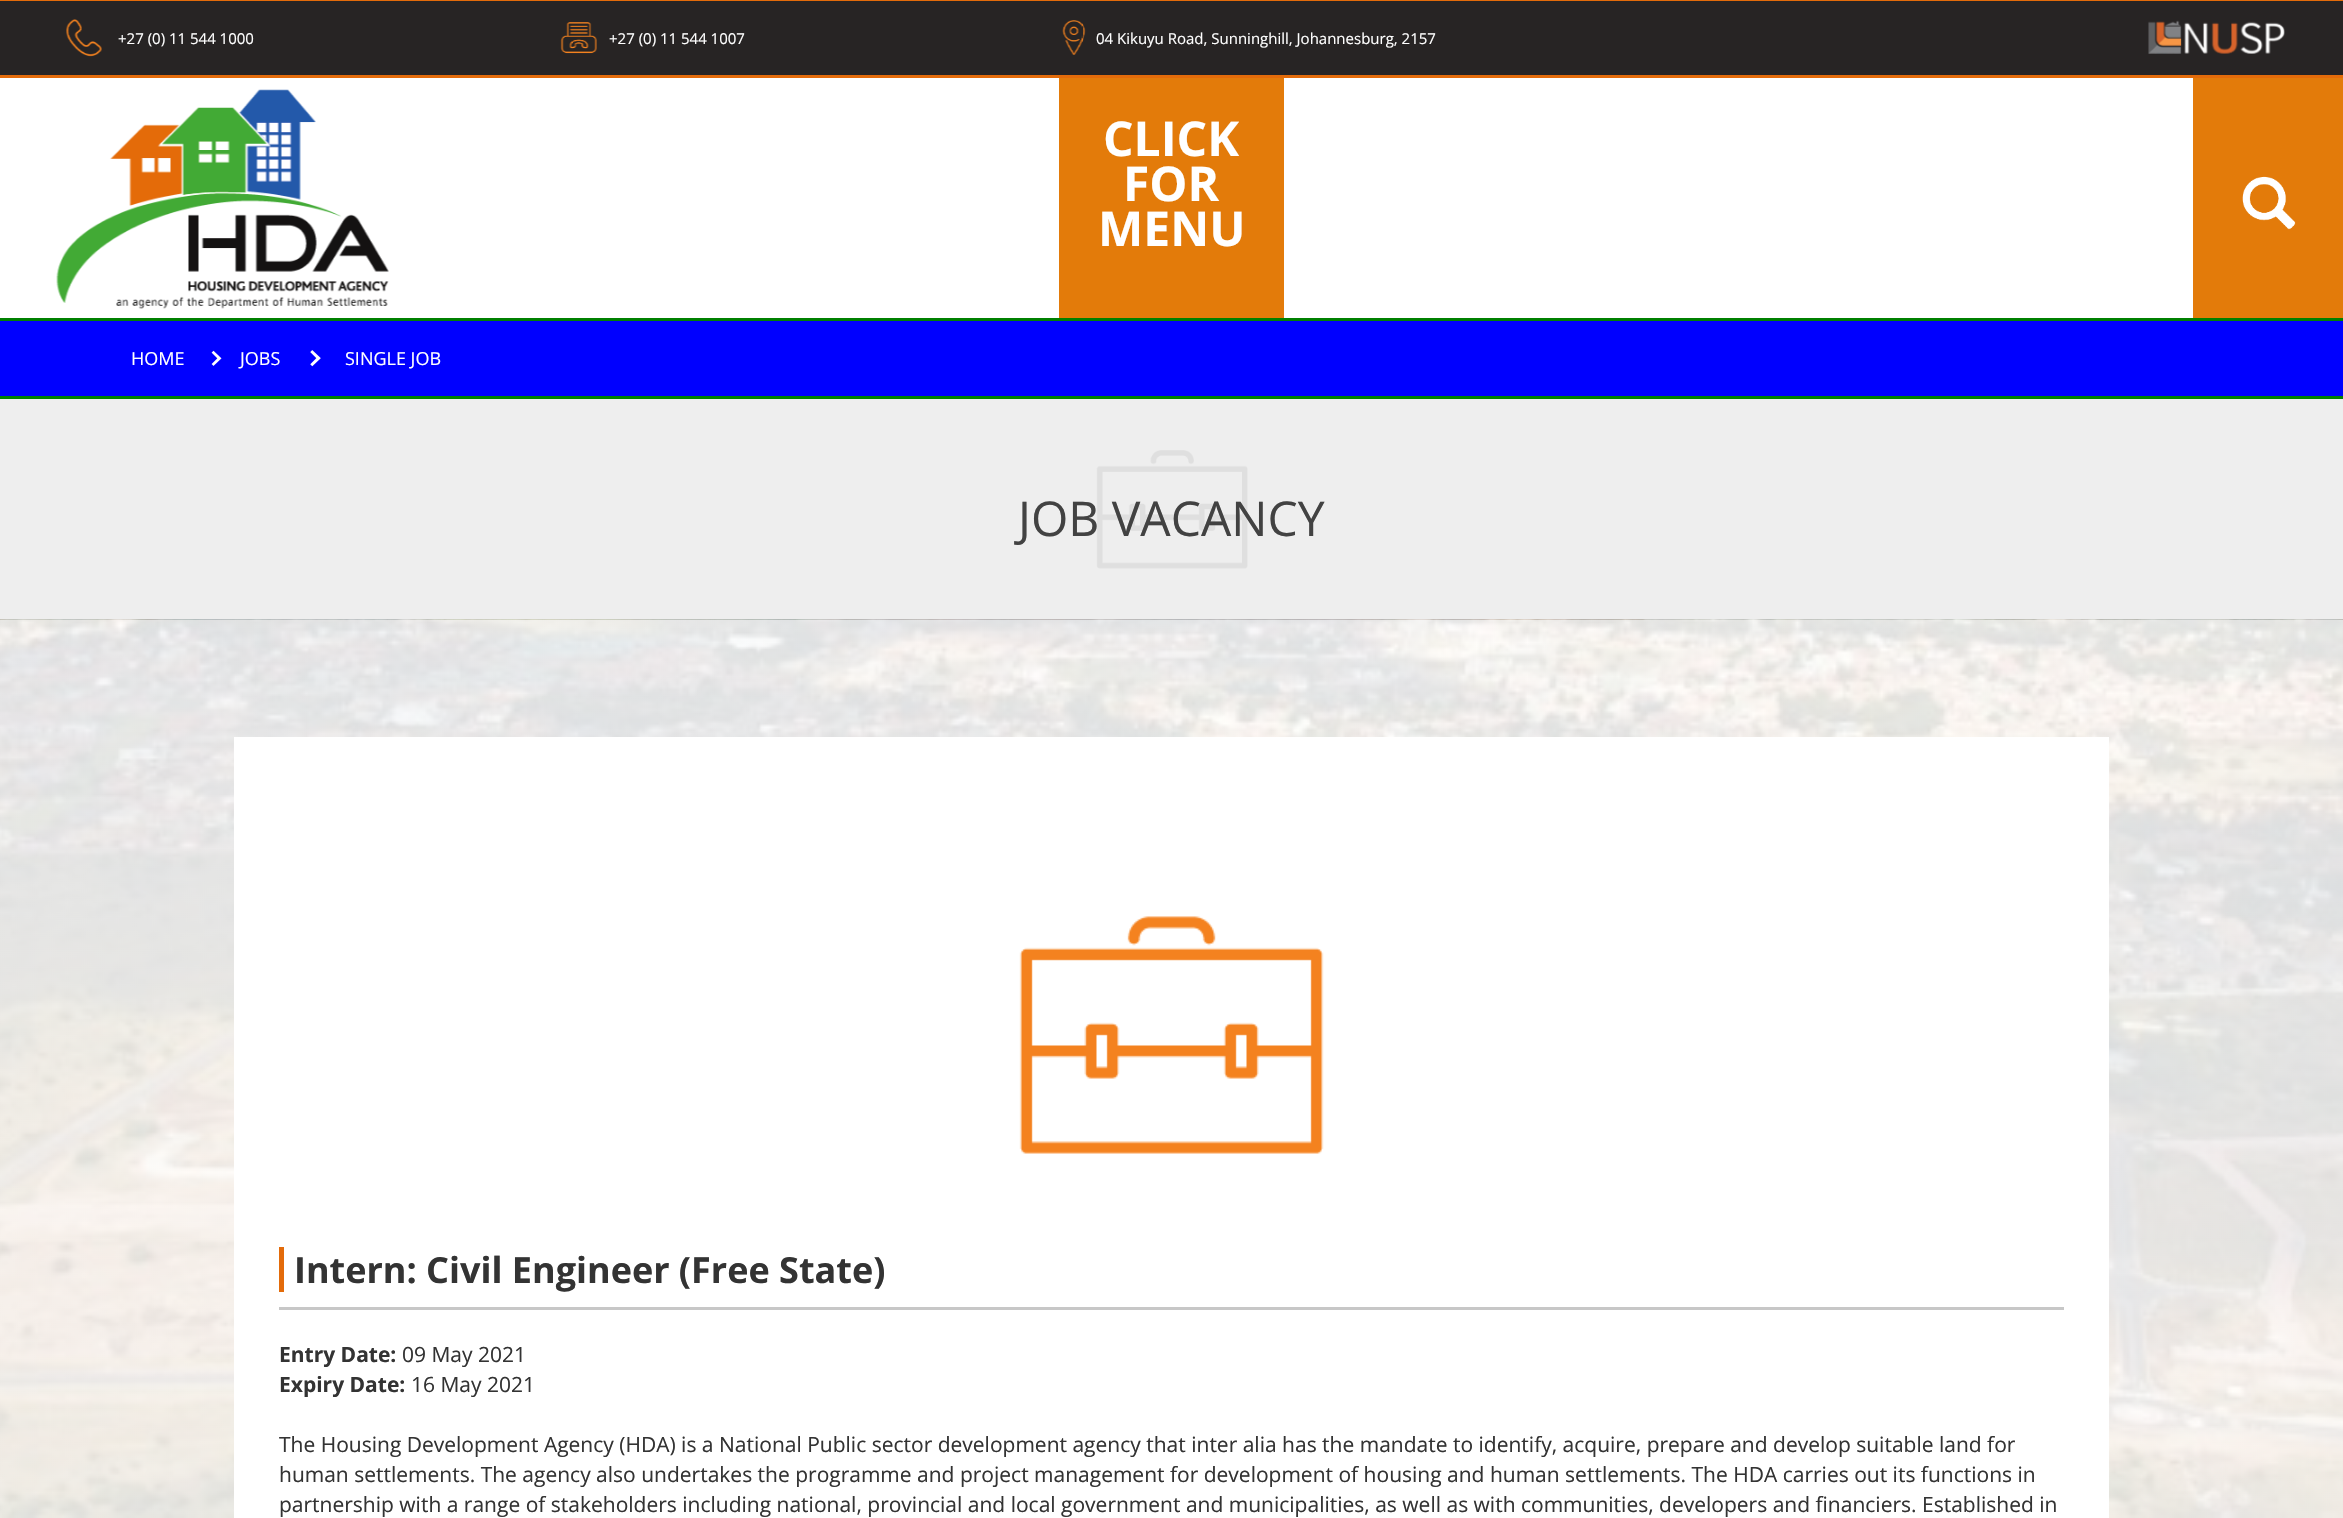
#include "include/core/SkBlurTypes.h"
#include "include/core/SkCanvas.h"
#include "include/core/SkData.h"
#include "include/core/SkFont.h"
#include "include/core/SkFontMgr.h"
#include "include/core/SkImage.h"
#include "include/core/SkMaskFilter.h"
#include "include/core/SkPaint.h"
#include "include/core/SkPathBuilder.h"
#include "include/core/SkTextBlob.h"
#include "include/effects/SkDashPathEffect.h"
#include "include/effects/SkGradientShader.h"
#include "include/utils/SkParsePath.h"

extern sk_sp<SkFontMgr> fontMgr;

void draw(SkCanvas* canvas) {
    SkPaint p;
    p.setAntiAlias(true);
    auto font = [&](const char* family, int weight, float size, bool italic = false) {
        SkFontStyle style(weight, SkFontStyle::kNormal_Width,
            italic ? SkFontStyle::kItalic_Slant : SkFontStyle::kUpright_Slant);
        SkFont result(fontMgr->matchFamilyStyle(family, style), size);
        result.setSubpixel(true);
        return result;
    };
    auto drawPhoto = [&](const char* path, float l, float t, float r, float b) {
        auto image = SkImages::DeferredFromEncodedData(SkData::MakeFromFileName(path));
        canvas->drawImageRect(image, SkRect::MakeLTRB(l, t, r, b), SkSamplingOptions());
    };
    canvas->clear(0xFFFFFFFF);
    {
        const struct { float l, t, r, b; SkColor color; } items[] = {
            {0, 0, 2343, 1, 0xFFE36B0A},
            {0, 1, 2343, 75, 0xFF272424},
            {0, 75, 2343, 78, 0xFFE36B0A},
        };
        for (auto [l, t, r, b, color] : items) {
            p.setColor(color);
            canvas->drawRect(SkRect::MakeLTRB(l, t, r, b), p);
        }
    }
    drawPhoto("media/1.png", 66, 19, 102, 57);
    auto font1 = font("Open Sans", 400, 15);
    p.setColor(0xFFFFFFFF);
    canvas->drawString("+27 (0) 11 544 1000", 118, 44, font1, p);
    drawPhoto("media/2.png", 560, 22, 597, 54);
    canvas->drawString("+27 (0) 11 544 1007", 609, 44, font1, p);
    drawPhoto("media/3.png", 1062, 20, 1086, 55);
    canvas->drawString("04 Kikuyu Road, Sunninghill, Johannesburg, 2157", 1096, 44, font1, p);
    drawPhoto("media/4.png", 2148, 20, 2285, 54);
    drawPhoto("media/5.png", 56, 89, 389, 309);
    p.setColor(0xFFE37B0A);
    canvas->drawRect(SkRect::MakeLTRB(1059, 78, 1284, 318), p);
    auto font2 = font("Open Sans", 700, 48);
    p.setColor(0xFFFFFFFF);
    {
        const struct { const char* s; float x, y; } items[] = {
            {"CLICK", 1103, 156},
            {"FOR", 1123, 201},
            {"MENU", 1098, 246},
        };
        for (auto [s, x, y] : items) {
            canvas->drawString(s, x, y, font2, p);
        }
    }
    p.setColor(0xFFE37B0A);
    canvas->drawRect(SkRect::MakeLTRB(2193, 78, 2343, 318), p);
    drawPhoto("media/6.png", 2242, 176, 2296, 230);
    {
        const struct { float l, t, r, b; SkColor color; } items[] = {
            {0, 321, 2343, 396, 0xFF0000FF},
            {0, 318, 2343, 321, 0xFF008000},
            {0, 396, 2343, 399, 0xFF008000},
        };
        for (auto [l, t, r, b, color] : items) {
            p.setColor(color);
            canvas->drawRect(SkRect::MakeLTRB(l, t, r, b), p);
        }
    }
    auto font3 = font("Open Sans", 400, 18);
    p.setColor(0xFFFFFFFF);
    canvas->drawString("HOME", 131, 365, font3, p);
    drawPhoto("media/7.png", 211, 350, 222, 366);
    canvas->drawString("JOBS", 240, 365, font3, p);
    drawPhoto("media/8.png", 310, 350, 321, 367);
    canvas->drawString("SINGLE JOB", 345, 365, font3, p);
    drawPhoto("media/9.png", 0, 399, 2343, 620);
    auto font4 = font("Open Sans", 400, 48);
    p.setColor(0xFF424242);
    canvas->drawString("JOB VACANCY", 1018, 536, font4, p);
    drawPhoto("media/10.png", 0, 619, 2343, 1518);
    p.setColor(0xFFFFFFFF);
    canvas->drawRect(SkRect::MakeLTRB(234, 737, 2109, 1518), p);
    drawPhoto("media/11.png", 1019, 916, 1324, 1154);
    p.setColor(0xFFE36B0A);
    canvas->drawRect(SkRect::MakeLTRB(279, 1247, 284, 1292), p);
    auto font5 = font("Open Sans", 700, 36);
    p.setColor(0xFF333333);
    canvas->drawString("Intern: Civil Engineer (Free State)", 294, 1283, font5, p);
    p.setColor(0xFFC7C7C7);
    canvas->drawRect(SkRect::MakeLTRB(279, 1307, 2064, 1310), p);
    auto font6 = font("Open Sans", 700, 21);
    p.setColor(0xFF333333);
    canvas->drawString("Entry Date:", 279, 1362, font6, p);
    auto font7 = font("Open Sans", 400, 21);
    canvas->drawString("09 May 2021", 402, 1362, font7, p);
    canvas->drawString("Expiry Date:", 279, 1392, font6, p);
    {
        const struct { const char* s; float x, y; } items[] = {
            {"16 May 2021", 411, 1392},
            {"The Housing Development Agency (HDA) is a National Public sector development agency that inter alia has the mandate to identify, acquire, prepare and develop suitable land for", 279, 1452},
            {"human settlements. The agency also undertakes the programme and project management for development of housing and human settlements. The HDA carries out its functions in", 279, 1482},
            {"partnership with a range of stakeholders including national, provincial and local government and municipalities, as well as with communities, developers and financiers. Established in", 279, 1512},
        };
        for (auto [s, x, y] : items) {
            canvas->drawString(s, x, y, font7, p);
        }
    }
}
